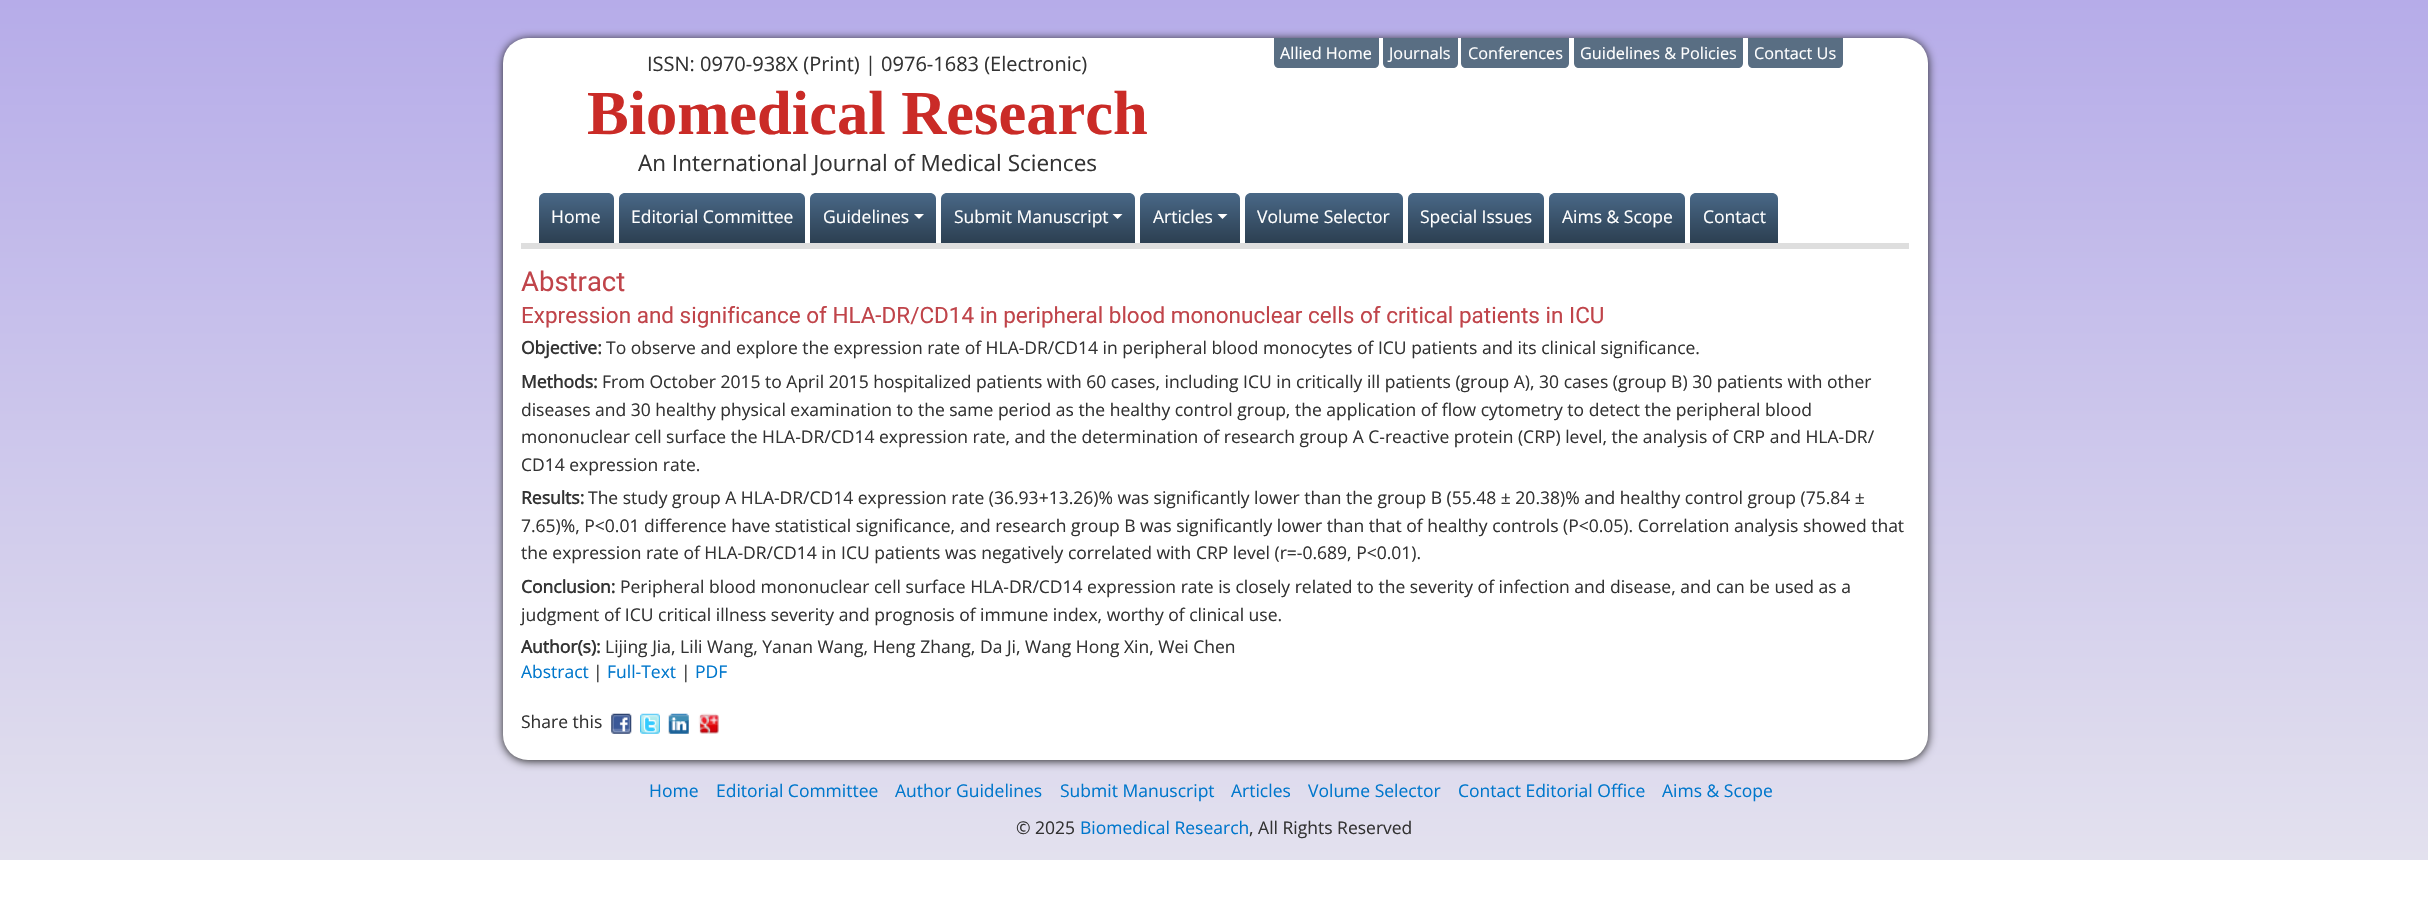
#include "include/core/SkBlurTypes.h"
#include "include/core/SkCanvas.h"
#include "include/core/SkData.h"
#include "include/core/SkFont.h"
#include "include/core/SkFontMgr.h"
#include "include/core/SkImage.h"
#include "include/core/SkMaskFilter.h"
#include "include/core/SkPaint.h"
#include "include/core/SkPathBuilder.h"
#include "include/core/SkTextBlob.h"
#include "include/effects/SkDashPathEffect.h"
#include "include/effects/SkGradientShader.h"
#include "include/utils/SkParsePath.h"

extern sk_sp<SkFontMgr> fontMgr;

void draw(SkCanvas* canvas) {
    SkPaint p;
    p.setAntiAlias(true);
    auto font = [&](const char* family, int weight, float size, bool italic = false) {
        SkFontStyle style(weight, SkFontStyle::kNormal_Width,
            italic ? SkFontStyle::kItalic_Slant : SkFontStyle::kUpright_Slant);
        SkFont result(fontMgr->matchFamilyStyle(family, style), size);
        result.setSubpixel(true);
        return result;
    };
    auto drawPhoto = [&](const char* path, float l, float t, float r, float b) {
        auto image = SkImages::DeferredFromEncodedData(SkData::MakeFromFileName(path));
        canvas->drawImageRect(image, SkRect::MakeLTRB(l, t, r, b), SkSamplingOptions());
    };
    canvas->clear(0xFFFFFFFF);
    {
        const SkColor colors[] = {0xFFE3E1EE, 0xFFB6ACE9};
        const float stops[] = {0, 1};
        const SkPoint ends[] = {{1214, 860}, {1214, 0}};
        p.setShader(SkGradientShader::MakeLinear(ends, colors, stops, 2, SkTileMode::kClamp));
        p.setAlpha(255);
    }
    canvas->drawRect(SkRect::MakeLTRB(0, 0, 2428, 860), p);
    p.setShader(nullptr);
    p.setColor(0xFF202020);
    p.setMaskFilter(SkMaskFilter::MakeBlur(kNormal_SkBlurStyle, 5));
    canvas->drawRoundRect(SkRect::MakeLTRB(503, 39, 1928, 761), 25, 25, p);
    p.setMaskFilter(nullptr);
    p.setColor(0xFFFFFFFF);
    canvas->drawRoundRect(SkRect::MakeLTRB(503, 38, 1928, 760), 25, 25, p);
    p.setColor(0xFFDEDEDE);
    canvas->drawRect(SkRect::MakeLTRB(521, 243, 1909, 249), p);
    auto font1 = font("Open Sans", 400, 20);
    p.setColor(0xFF333333);
    canvas->drawString("ISSN: 0970-938X (Print) | 0976-1683 (Electronic)", 647, 71, font1, p);
    auto font2 = font("Liberation Serif", 700, 62.5f);
    p.setColor(0xFFCA2B27);
    canvas->drawString("Biomedical Research", 587, 134, font2, p);
    auto font3 = font("Open Sans", 400, 22.5f);
    p.setColor(0xFF333333);
    canvas->drawString("An International Journal of Medical Sciences", 638, 171, font3, p);
    p.setColor(0xFF596E83);
    canvas->drawPath(SkPathBuilder().moveTo(1274, 38).lineTo(1379, 38).lineTo(1379, 63).cubicTo(1379, 66, 1377, 68, 1374, 68).lineTo(1279, 68).cubicTo(1276, 68, 1274, 66, 1274, 63).close().detach(), p);
    auto font4 = font("Open Sans", 400, 16.25f);
    p.setColor(0xFFFFFFFF);
    canvas->drawString("Allied Home", 1280, 59, font4, p);
    p.setColor(0xFF596E83);
    canvas->drawPath(SkPathBuilder().moveTo(1383, 38).lineTo(1458, 38).lineTo(1458, 63).cubicTo(1458, 66, 1456, 68, 1453, 68).lineTo(1388, 68).cubicTo(1385, 68, 1383, 66, 1383, 63).close().detach(), p);
    p.setColor(0xFFFFFFFF);
    canvas->drawString("Journals", 1389, 59, font4, p);
    p.setColor(0xFF596E83);
    canvas->drawPath(SkPathBuilder().moveTo(1461, 38).lineTo(1569, 38).lineTo(1569, 63).cubicTo(1569, 66, 1567, 68, 1564, 68).lineTo(1466, 68).cubicTo(1463, 68, 1461, 66, 1461, 63).close().detach(), p);
    p.setColor(0xFFFFFFFF);
    canvas->drawString("Conferences", 1468, 59, font4, p);
    p.setColor(0xFF596E83);
    canvas->drawPath(SkPathBuilder().moveTo(1574, 38).lineTo(1743, 38).lineTo(1743, 63).cubicTo(1743, 66, 1741, 68, 1738, 68).lineTo(1579, 68).cubicTo(1576, 68, 1574, 66, 1574, 63).close().detach(), p);
    p.setColor(0xFFFFFFFF);
    canvas->drawString("Guidelines & Policies", 1580, 59, font4, p);
    p.setColor(0xFF596E83);
    canvas->drawPath(SkPathBuilder().moveTo(1748, 38).lineTo(1843, 38).lineTo(1843, 63).cubicTo(1843, 66, 1841, 68, 1838, 68).lineTo(1753, 68).cubicTo(1750, 68, 1748, 66, 1748, 63).close().detach(), p);
    p.setColor(0xFFFFFFFF);
    canvas->drawString("Contact Us", 1754, 59, font4, p);
    {
        const SkColor colors[] = {0xFF2C3F51, 0xFF496887};
        const float stops[] = {0, 1};
        const SkPoint ends[] = {{576, 243}, {576, 193}};
        p.setShader(SkGradientShader::MakeLinear(ends, colors, stops, 2, SkTileMode::kClamp));
        p.setAlpha(255);
    }
    canvas->drawPath(SkPathBuilder().moveTo(545, 193).lineTo(608, 193).cubicTo(611.5f, 193, 614, 195.5f, 614, 199).lineTo(614, 243).lineTo(539, 243).lineTo(539, 199).cubicTo(539, 195.5f, 541.5f, 193, 545, 193).close().detach(), p);
    auto font5 = font("Open Sans", 400, 17.5f);
    p.setShader(nullptr);
    p.setColor(0xFFFFFFFF);
    canvas->drawString("Home", 551, 223, font5, p);
    {
        const SkColor colors[] = {0xFF2C3F51, 0xFF496887};
        const float stops[] = {0, 1};
        const SkPoint ends[] = {{712, 243}, {712, 193}};
        p.setShader(SkGradientShader::MakeLinear(ends, colors, stops, 2, SkTileMode::kClamp));
        p.setAlpha(255);
    }
    canvas->drawPath(SkPathBuilder().moveTo(625, 193).lineTo(799, 193).cubicTo(802.5f, 193, 805, 195.5f, 805, 199).lineTo(805, 243).lineTo(619, 243).lineTo(619, 199).cubicTo(619, 195.5f, 621.5f, 193, 625, 193).close().detach(), p);
    p.setShader(nullptr);
    p.setColor(0xFFFFFFFF);
    canvas->drawString("Editorial Committee", 631, 223, font5, p);
    {
        const SkColor colors[] = {0xFF2C3F51, 0xFF496887};
        const float stops[] = {0, 1};
        const SkPoint ends[] = {{873, 243}, {873, 193}};
        p.setShader(SkGradientShader::MakeLinear(ends, colors, stops, 2, SkTileMode::kClamp));
        p.setAlpha(255);
    }
    canvas->drawPath(SkPathBuilder().moveTo(816, 193).lineTo(930, 193).cubicTo(933.5f, 193, 936, 195.5f, 936, 199).lineTo(936, 243).lineTo(810, 243).lineTo(810, 199).cubicTo(810, 195.5f, 812.5f, 193, 816, 193).close().detach(), p);
    p.setShader(nullptr);
    p.setColor(0xFFFFFFFF);
    canvas->drawString("Guidelines", 823, 223, font5, p);
    canvas->drawPath(SkPathBuilder().moveTo(914, 214).lineTo(924, 214).lineTo(919, 219).close().detach(), p);
    {
        const SkColor colors[] = {0xFF2C3F51, 0xFF496887};
        const float stops[] = {0, 1};
        const SkPoint ends[] = {{1038, 243}, {1038, 193}};
        p.setShader(SkGradientShader::MakeLinear(ends, colors, stops, 2, SkTileMode::kClamp));
        p.setAlpha(255);
    }
    canvas->drawPath(SkPathBuilder().moveTo(947, 193).lineTo(1129, 193).cubicTo(1132.5f, 193, 1135, 195.5f, 1135, 199).lineTo(1135, 243).lineTo(941, 243).lineTo(941, 199).cubicTo(941, 195.5f, 943.5f, 193, 947, 193).close().detach(), p);
    p.setShader(nullptr);
    p.setColor(0xFFFFFFFF);
    canvas->drawString("Submit Manuscript", 954, 223, font5, p);
    canvas->drawPath(SkPathBuilder().moveTo(1112.5f, 214).lineTo(1122.5f, 214).lineTo(1117.5f, 219).close().detach(), p);
    {
        const SkColor colors[] = {0xFF2C3F51, 0xFF496887};
        const float stops[] = {0, 1};
        const SkPoint ends[] = {{1190, 243}, {1190, 193}};
        p.setShader(SkGradientShader::MakeLinear(ends, colors, stops, 2, SkTileMode::kClamp));
        p.setAlpha(255);
    }
    canvas->drawPath(SkPathBuilder().moveTo(1146, 193).lineTo(1234, 193).cubicTo(1237.5f, 193, 1240, 195.5f, 1240, 199).lineTo(1240, 243).lineTo(1140, 243).lineTo(1140, 199).cubicTo(1140, 195.5f, 1142.5f, 193, 1146, 193).close().detach(), p);
    p.setShader(nullptr);
    p.setColor(0xFFFFFFFF);
    canvas->drawString("Articles", 1153, 223, font5, p);
    canvas->drawPath(SkPathBuilder().moveTo(1217.5f, 214).lineTo(1227.5f, 214).lineTo(1222.5f, 219).close().detach(), p);
    {
        const SkColor colors[] = {0xFF2C3F51, 0xFF496887};
        const float stops[] = {0, 1};
        const SkPoint ends[] = {{1324, 243}, {1324, 193}};
        p.setShader(SkGradientShader::MakeLinear(ends, colors, stops, 2, SkTileMode::kClamp));
        p.setAlpha(255);
    }
    canvas->drawPath(SkPathBuilder().moveTo(1251, 193).lineTo(1397, 193).cubicTo(1400.5f, 193, 1403, 195.5f, 1403, 199).lineTo(1403, 243).lineTo(1245, 243).lineTo(1245, 199).cubicTo(1245, 195.5f, 1247.5f, 193, 1251, 193).close().detach(), p);
    p.setShader(nullptr);
    p.setColor(0xFFFFFFFF);
    canvas->drawString("Volume Selector", 1257, 223, font5, p);
    {
        const SkColor colors[] = {0xFF2C3F51, 0xFF496887};
        const float stops[] = {0, 1};
        const SkPoint ends[] = {{1476, 243}, {1476, 193}};
        p.setShader(SkGradientShader::MakeLinear(ends, colors, stops, 2, SkTileMode::kClamp));
        p.setAlpha(255);
    }
    canvas->drawPath(SkPathBuilder().moveTo(1414, 193).lineTo(1538, 193).cubicTo(1541.5f, 193, 1544, 195.5f, 1544, 199).lineTo(1544, 243).lineTo(1408, 243).lineTo(1408, 199).cubicTo(1408, 195.5f, 1410.5f, 193, 1414, 193).close().detach(), p);
    p.setShader(nullptr);
    p.setColor(0xFFFFFFFF);
    canvas->drawString("Special Issues", 1420, 223, font5, p);
    {
        const SkColor colors[] = {0xFF2C3F51, 0xFF496887};
        const float stops[] = {0, 1};
        const SkPoint ends[] = {{1617, 243}, {1617, 193}};
        p.setShader(SkGradientShader::MakeLinear(ends, colors, stops, 2, SkTileMode::kClamp));
        p.setAlpha(255);
    }
    canvas->drawPath(SkPathBuilder().moveTo(1555, 193).lineTo(1679, 193).cubicTo(1682.5f, 193, 1685, 195.5f, 1685, 199).lineTo(1685, 243).lineTo(1549, 243).lineTo(1549, 199).cubicTo(1549, 195.5f, 1551.5f, 193, 1555, 193).close().detach(), p);
    p.setShader(nullptr);
    p.setColor(0xFFFFFFFF);
    canvas->drawString("Aims & Scope", 1562, 223, font5, p);
    {
        const SkColor colors[] = {0xFF2C3F51, 0xFF496887};
        const float stops[] = {0, 1};
        const SkPoint ends[] = {{1734, 243}, {1734, 193}};
        p.setShader(SkGradientShader::MakeLinear(ends, colors, stops, 2, SkTileMode::kClamp));
        p.setAlpha(255);
    }
    canvas->drawPath(SkPathBuilder().moveTo(1696, 193).lineTo(1772, 193).cubicTo(1775.5f, 193, 1778, 195.5f, 1778, 199).lineTo(1778, 243).lineTo(1690, 243).lineTo(1690, 199).cubicTo(1690, 195.5f, 1692.5f, 193, 1696, 193).close().detach(), p);
    p.setShader(nullptr);
    p.setColor(0xFFFFFFFF);
    canvas->drawString("Contact", 1703, 223, font5, p);
    auto font6 = font("Roboto", 400, 27.5f);
    p.setColor(0xFFC0444A);
    canvas->drawString("Abstract", 521, 291, font6, p);
    auto font7 = font("Roboto", 400, 22.5f);
    canvas->drawString("Expression and significance of HLA-DR/CD14 in peripheral blood mononuclear cells of critical patients in ICU", 521, 323, font7, p);
    auto font8 = font("Open Sans", 700, 17.5f);
    p.setColor(0xFF333333);
    canvas->drawString("Objective:", 521, 354, font8, p);
    canvas->drawString("To observe and explore the expression rate of HLA-DR/CD14 in peripheral blood monocytes of ICU patients and its clinical significance.", 606, 354, font5, p);
    canvas->drawString("Methods:", 521, 388, font8, p);
    {
        const struct { const char* s; float x, y; } items[] = {
            {"From October 2015 to April 2015 hospitalized patients with 60 cases, including ICU in critically ill patients (group A), 30 cases (group B) 30 patients with other", 602, 388},
            {"diseases and 30 healthy physical examination to the same period as the healthy control group, the application of flow cytometry to detect the peripheral blood", 521, 416},
            {"mononuclear cell surface the HLA-DR/CD14 expression rate, and the determination of research group A C-reactive protein (CRP) level, the analysis of CRP and HLA-DR/", 521, 443},
            {"CD14 expression rate.", 521, 471},
        };
        for (auto [s, x, y] : items) {
            canvas->drawString(s, x, y, font5, p);
        }
    }
    canvas->drawString("Results:", 521, 504, font8, p);
    {
        const struct { const char* s; float x, y; } items[] = {
            {"The study group A HLA-DR/CD14 expression rate (36.93+13.26)% was significantly lower than the group B (55.48 ± 20.38)% and healthy control group (75.84 ±", 588, 504},
            {"7.65)%, P<0.01 difference have statistical significance, and research group B was significantly lower than that of healthy controls (P<0.05). Correlation analysis showed that", 521, 532},
            {"the expression rate of HLA-DR/CD14 in ICU patients was negatively correlated with CRP level (r=-0.689, P<0.01).", 521, 559},
        };
        for (auto [s, x, y] : items) {
            canvas->drawString(s, x, y, font5, p);
        }
    }
    canvas->drawString("Conclusion:", 521, 593, font8, p);
    canvas->drawString("Peripheral blood mononuclear cell surface HLA-DR/CD14 expression rate is closely related to the severity of infection and disease, and can be used as a", 620, 593, font5, p);
    canvas->drawString("judgment of ICU critical illness severity and prognosis of immune index, worthy of clinical use.", 521, 621, font5, p);
    canvas->drawString("Author(s):", 521, 653, font8, p);
    canvas->drawString("Lijing Jia, Lili Wang, Yanan Wang, Heng Zhang, Da Ji, Wang Hong Xin, Wei Chen", 605, 653, font5, p);
    p.setColor(0xFF0077CC);
    canvas->drawString("Abstract", 521, 678, font5, p);
    p.setColor(0xFF333333);
    canvas->drawString("|", 593, 678, font5, p);
    p.setColor(0xFF0077CC);
    canvas->drawString("Full-Text", 607, 678, font5, p);
    p.setColor(0xFF333333);
    canvas->drawString("|", 681, 678, font5, p);
    p.setColor(0xFF0077CC);
    canvas->drawString("PDF", 695, 678, font5, p);
    p.setColor(0xFF333333);
    canvas->drawString("Share this", 521, 728, font5, p);
    drawPhoto("media/1.png", 611, 713, 632, 734);
    drawPhoto("media/2.png", 640, 713, 660, 734);
    drawPhoto("media/3.png", 668, 713, 689, 734);
    drawPhoto("media/4.png", 698, 713, 719, 734);
    p.setColor(0xFF0077CC);
    {
        const struct { const char* s; float x, y; } items[] = {
            {"Home", 649, 797},
            {"Editorial Committee", 716, 797},
            {"Author Guidelines", 895, 797},
            {"Submit Manuscript", 1060, 797},
            {"Articles", 1231, 797},
            {"Volume Selector", 1308, 797},
            {"Contact Editorial Office", 1458, 797},
            {"Aims & Scope", 1662, 797},
        };
        for (auto [s, x, y] : items) {
            canvas->drawString(s, x, y, font5, p);
        }
    }
    p.setColor(0xFF333333);
    canvas->drawString("© 2025", 1016, 834, font5, p);
    p.setColor(0xFF0077CC);
    canvas->drawString("Biomedical Research", 1080, 834, font5, p);
    p.setColor(0xFF333333);
    canvas->drawString(", All Rights Reserved", 1249, 834, font5, p);
}
